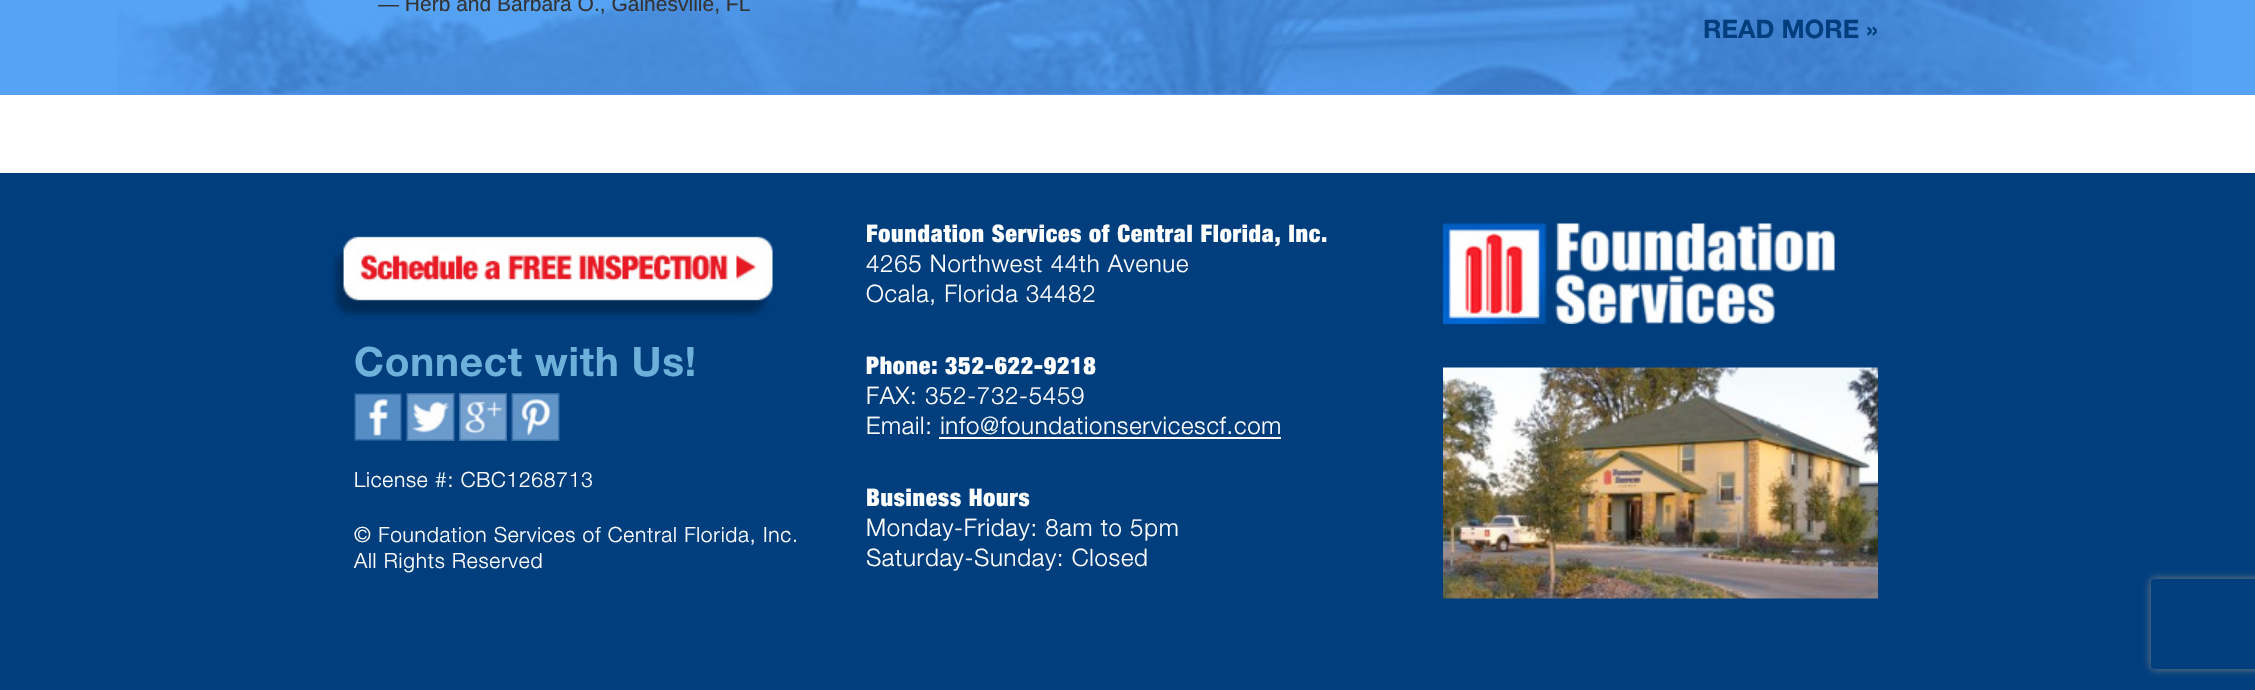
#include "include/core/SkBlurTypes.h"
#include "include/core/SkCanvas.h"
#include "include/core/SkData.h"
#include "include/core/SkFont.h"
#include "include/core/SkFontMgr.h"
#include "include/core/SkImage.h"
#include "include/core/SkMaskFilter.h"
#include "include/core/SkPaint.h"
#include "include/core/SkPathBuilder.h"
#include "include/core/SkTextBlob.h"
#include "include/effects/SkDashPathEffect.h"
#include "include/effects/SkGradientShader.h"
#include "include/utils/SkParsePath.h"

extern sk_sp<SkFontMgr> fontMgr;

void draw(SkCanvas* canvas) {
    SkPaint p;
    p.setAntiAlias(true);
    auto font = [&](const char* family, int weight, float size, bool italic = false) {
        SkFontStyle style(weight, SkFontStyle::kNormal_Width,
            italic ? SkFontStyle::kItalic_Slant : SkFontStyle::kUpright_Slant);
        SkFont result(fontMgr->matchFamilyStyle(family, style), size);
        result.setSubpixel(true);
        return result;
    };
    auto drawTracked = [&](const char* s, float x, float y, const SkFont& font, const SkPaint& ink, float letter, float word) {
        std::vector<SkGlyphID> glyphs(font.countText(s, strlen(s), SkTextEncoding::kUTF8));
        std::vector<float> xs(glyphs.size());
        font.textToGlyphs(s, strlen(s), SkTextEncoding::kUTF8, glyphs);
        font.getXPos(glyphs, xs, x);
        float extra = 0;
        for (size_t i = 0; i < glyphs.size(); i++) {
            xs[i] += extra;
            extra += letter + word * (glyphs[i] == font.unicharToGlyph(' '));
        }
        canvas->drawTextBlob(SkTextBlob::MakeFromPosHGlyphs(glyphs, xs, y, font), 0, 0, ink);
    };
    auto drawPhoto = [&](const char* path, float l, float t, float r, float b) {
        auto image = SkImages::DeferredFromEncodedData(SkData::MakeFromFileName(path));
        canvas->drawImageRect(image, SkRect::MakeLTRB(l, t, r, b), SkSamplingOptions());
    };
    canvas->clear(0xFFFFFFFF);
    p.setColor(0xFF56A3F5);
    canvas->drawRect(SkRect::MakeLTRB(0, 0, 2255, 95), p);
    drawPhoto("media/1.png", 117, 0, 2192, 95);
    auto font1 = font("Liberation Sans", 400, 21);
    p.setColor(0xFF333333);
    canvas->drawString("— Herb and Barbara O., Gainesville, FL", 378, 11, font1, p);
    auto font2 = font("Helvetica Neue", 700, 25.5f);
    p.setColor(0xFF003E7E);
    canvas->drawString("READ MORE »", 1703, 38, font2, p);
    canvas->drawRect(SkRect::MakeLTRB(0, 173, 2255, 690), p);
    drawPhoto("media/2.png", 333, 236, 777, 317);
    auto font3 = font("Helvetica Neue", 700, 40.5f);
    p.setColor(0xFF6DB1DB);
    drawTracked("Connect with Us!", 354, 376, font3, p, 0.75f, 0);
    drawPhoto("media/3.png", 354, 393, 402, 441);
    drawPhoto("media/4.png", 406, 393, 455, 441);
    drawPhoto("media/5.png", 459, 393, 507, 441);
    drawPhoto("media/6.png", 511, 393, 560, 441);
    auto font4 = font("Helvetica Neue", 300, 21);
    p.setColor(0xFFFFFFFF);
    {
        const struct { const char* s; float x, y; } items[] = {
            {"License #: CBC1268713", 354, 487},
            {"© Foundation Services of Central Florida, Inc.", 354, 542},
            {"All Rights Reserved", 354, 568},
        };
        for (auto [s, x, y] : items) {
            drawTracked(s, x, y, font4, p, 0.75f, 0);
        }
    }
    auto font5 = font("Helvetica Neue", 900, 24);
    drawTracked("Foundation Services of Central Florida, Inc.", 866, 242, font5, p, 0.75f, 0);
    auto font6 = font("Helvetica Neue", 300, 24);
    drawTracked("4265 Northwest 44th Avenue", 866, 272, font6, p, 0.75f, 0);
    drawTracked("Ocala, Florida 34482", 866, 302, font6, p, 0.75f, 0);
    drawTracked("Phone: 352-622-9218", 866, 374, font5, p, 0.75f, 0);
    drawTracked("FAX: 352-732-5459", 866, 404, font6, p, 0.75f, 0);
    drawTracked("Email: info@foundationservicescf.com", 866, 434, font6, p, 0.75f, 0);
    canvas->drawRect(SkRect::MakeLTRB(939, 437, 1281, 439), p);
    drawTracked("Business Hours", 866, 506, font5, p, 0.75f, 0);
    drawTracked("Monday-Friday: 8am to 5pm", 866, 536, font6, p, 0.75f, 0);
    drawTracked("Saturday-Sunday: Closed", 866, 566, font6, p, 0.75f, 0);
    drawPhoto("media/7.png", 1443, 223, 1836, 324);
    drawPhoto("media/8.png", 1443, 367, 1878, 599);
    canvas->save();
    canvas->clipPath(SkPathBuilder(SkPathFillType::kEvenOdd).moveTo(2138, 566).lineTo(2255, 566).lineTo(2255, 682).lineTo(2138, 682).close().moveTo(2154, 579).lineTo(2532, 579).cubicTo(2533.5f, 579, 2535, 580.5f, 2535, 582).lineTo(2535, 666).cubicTo(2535, 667.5f, 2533.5f, 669, 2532, 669).lineTo(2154, 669).cubicTo(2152.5f, 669, 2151, 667.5f, 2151, 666).lineTo(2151, 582).cubicTo(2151, 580.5f, 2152.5f, 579, 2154, 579).close().detach(), true);
    p.setColor(0xFF808080);
    p.setMaskFilter(SkMaskFilter::MakeBlur(kNormal_SkBlurStyle, 4));
    canvas->drawRoundRect(SkRect::MakeLTRB(2151, 579, 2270, 669), 3, 3, p);
    p.setMaskFilter(nullptr);
    canvas->restore();
}
